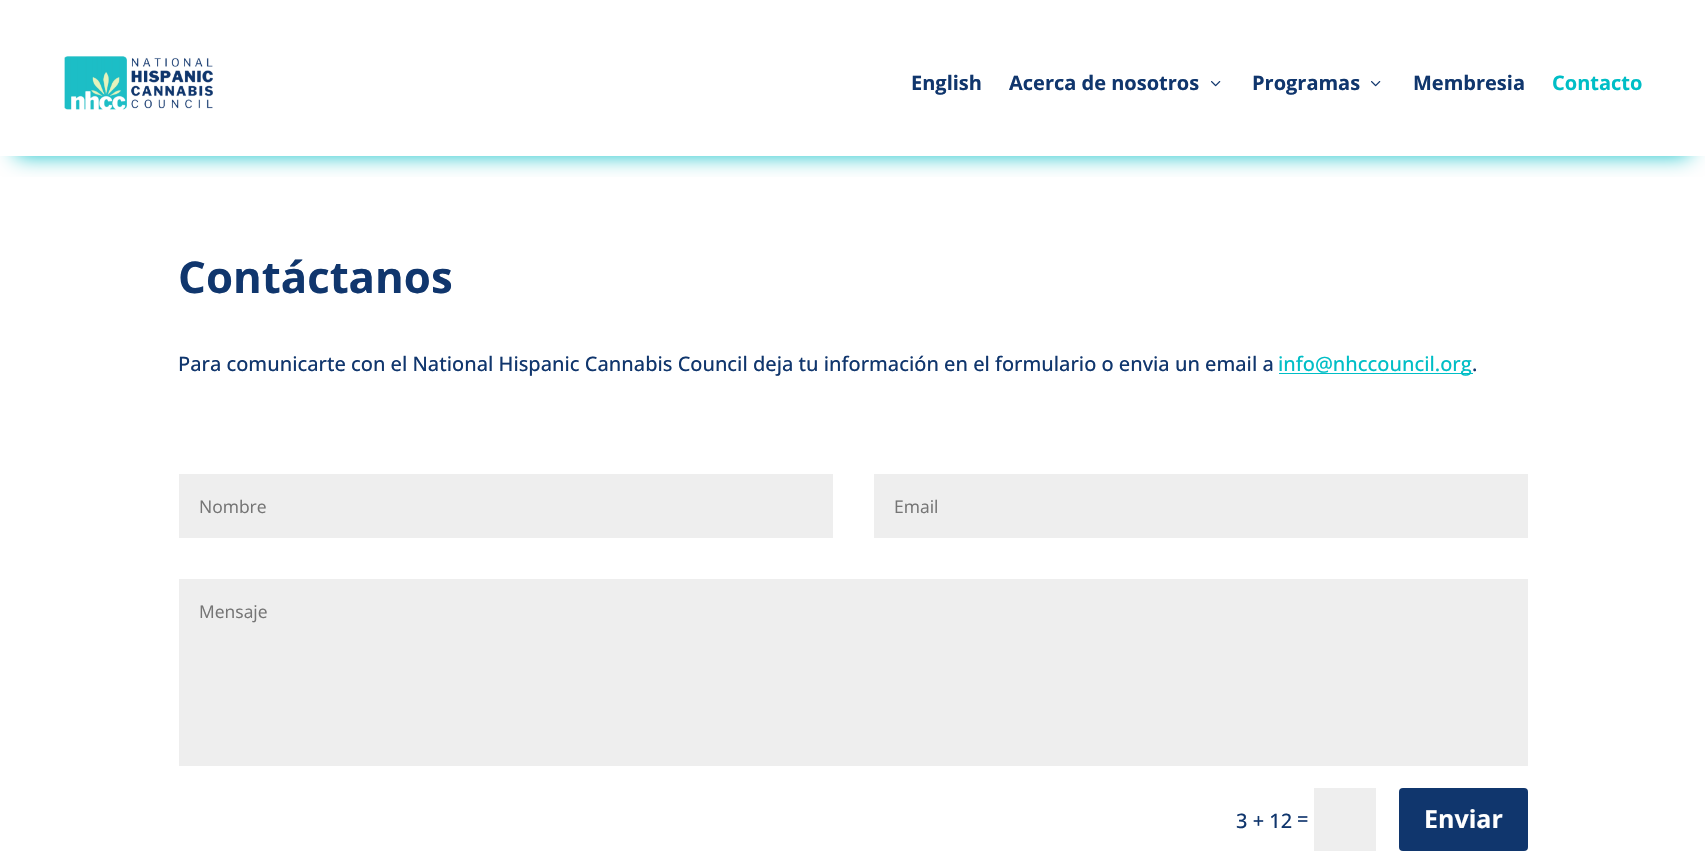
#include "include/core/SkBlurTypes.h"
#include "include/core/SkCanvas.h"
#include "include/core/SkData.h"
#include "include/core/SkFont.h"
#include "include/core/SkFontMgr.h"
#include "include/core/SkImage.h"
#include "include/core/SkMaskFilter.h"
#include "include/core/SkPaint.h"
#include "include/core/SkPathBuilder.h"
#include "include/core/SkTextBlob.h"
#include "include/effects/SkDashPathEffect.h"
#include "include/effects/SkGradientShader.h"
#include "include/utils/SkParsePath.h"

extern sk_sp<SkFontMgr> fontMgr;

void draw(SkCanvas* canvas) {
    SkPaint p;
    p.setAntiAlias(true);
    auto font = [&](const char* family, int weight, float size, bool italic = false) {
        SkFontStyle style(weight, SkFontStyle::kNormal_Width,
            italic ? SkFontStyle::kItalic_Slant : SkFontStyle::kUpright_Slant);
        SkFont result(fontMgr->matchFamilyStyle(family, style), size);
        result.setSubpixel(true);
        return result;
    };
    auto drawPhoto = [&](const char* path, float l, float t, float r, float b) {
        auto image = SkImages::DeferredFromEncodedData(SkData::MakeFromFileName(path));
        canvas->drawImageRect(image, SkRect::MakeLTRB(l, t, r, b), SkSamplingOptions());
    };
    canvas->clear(0xFFFFFFFF);
    canvas->save();
    canvas->clipRect(SkRect::MakeLTRB(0, 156, 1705, 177));
    p.setColor(0xFF00BEC6);
    p.setMaskFilter(SkMaskFilter::MakeBlur(kNormal_SkBlurStyle, 10.5f));
    canvas->drawRect(SkRect::MakeLTRB(16, 66, 1689, 155), p);
    p.setMaskFilter(nullptr);
    canvas->restore();
    drawPhoto("media/1.png", 64, 56, 213, 110);
    auto font1 = font("Open Sans", 700, 20);
    p.setColor(0xFF10366D);
    canvas->drawString("English", 911, 90, font1, p);
    canvas->drawString("Acerca de nosotros", 1009, 90, font1, p);
    drawPhoto("media/2.png", 1211, 81, 1221, 87);
    canvas->drawString("Programas", 1252, 90, font1, p);
    drawPhoto("media/2.png", 1371, 81, 1381, 87);
    canvas->drawString("Membresia", 1413, 90, font1, p);
    p.setColor(0xFF00BEC6);
    canvas->drawString("Contacto", 1552, 90, font1, p);
    auto font2 = font("Open Sans", 700, 43.75f);
    p.setColor(0xFF10366D);
    canvas->drawString("Contáctanos", 178, 293, font2, p);
    auto font3 = font("Open Sans", 500, 20);
    canvas->drawString("Para comunicarte con el National Hispanic Cannabis Council deja tu información en el formulario o envia un email a", 178, 371, font3, p);
    p.setColor(0xFF00BEC6);
    canvas->drawRect(SkRect::MakeLTRB(1279, 373, 1473, 374), p);
    canvas->drawString("info@nhccouncil.org", 1278, 371, font3, p);
    p.setColor(0xFF10366D);
    canvas->drawString(".", 1472, 371, font3, p);
    p.setColor(0xFFEEEEEE);
    canvas->drawRect(SkRect::MakeLTRB(179, 474, 833, 538), p);
    auto font4 = font("Open Sans", 400, 17.5f);
    p.setColor(0xFF757575);
    canvas->drawString("Nombre", 199, 513, font4, p);
    p.setColor(0xFFEEEEEE);
    canvas->drawRect(SkRect::MakeLTRB(874, 474, 1528, 538), p);
    p.setColor(0xFF757575);
    canvas->drawString("Email", 894, 513, font4, p);
    p.setColor(0xFFEEEEEE);
    canvas->drawRect(SkRect::MakeLTRB(179, 579, 1528, 766), p);
    p.setColor(0xFF757575);
    canvas->drawString("Mensaje", 199, 618, font4, p);
    p.setColor(0xFF10366D);
    canvas->drawString("3 + 12", 1236, 828, font3, p);
    canvas->drawString("=", 1297, 826, font3, p);
    p.setColor(0xFFEEEEEE);
    canvas->drawRect(SkRect::MakeLTRB(1314, 788, 1376, 851), p);
    p.setColor(0xFF10366D);
    canvas->drawRoundRect(SkRect::MakeLTRB(1399, 788, 1528, 851), 4, 4, p);
    auto font5 = font("Open Sans", 700, 25);
    p.setColor(0xFFFFFFFF);
    canvas->drawString("Enviar", 1424, 828, font5, p);
}
